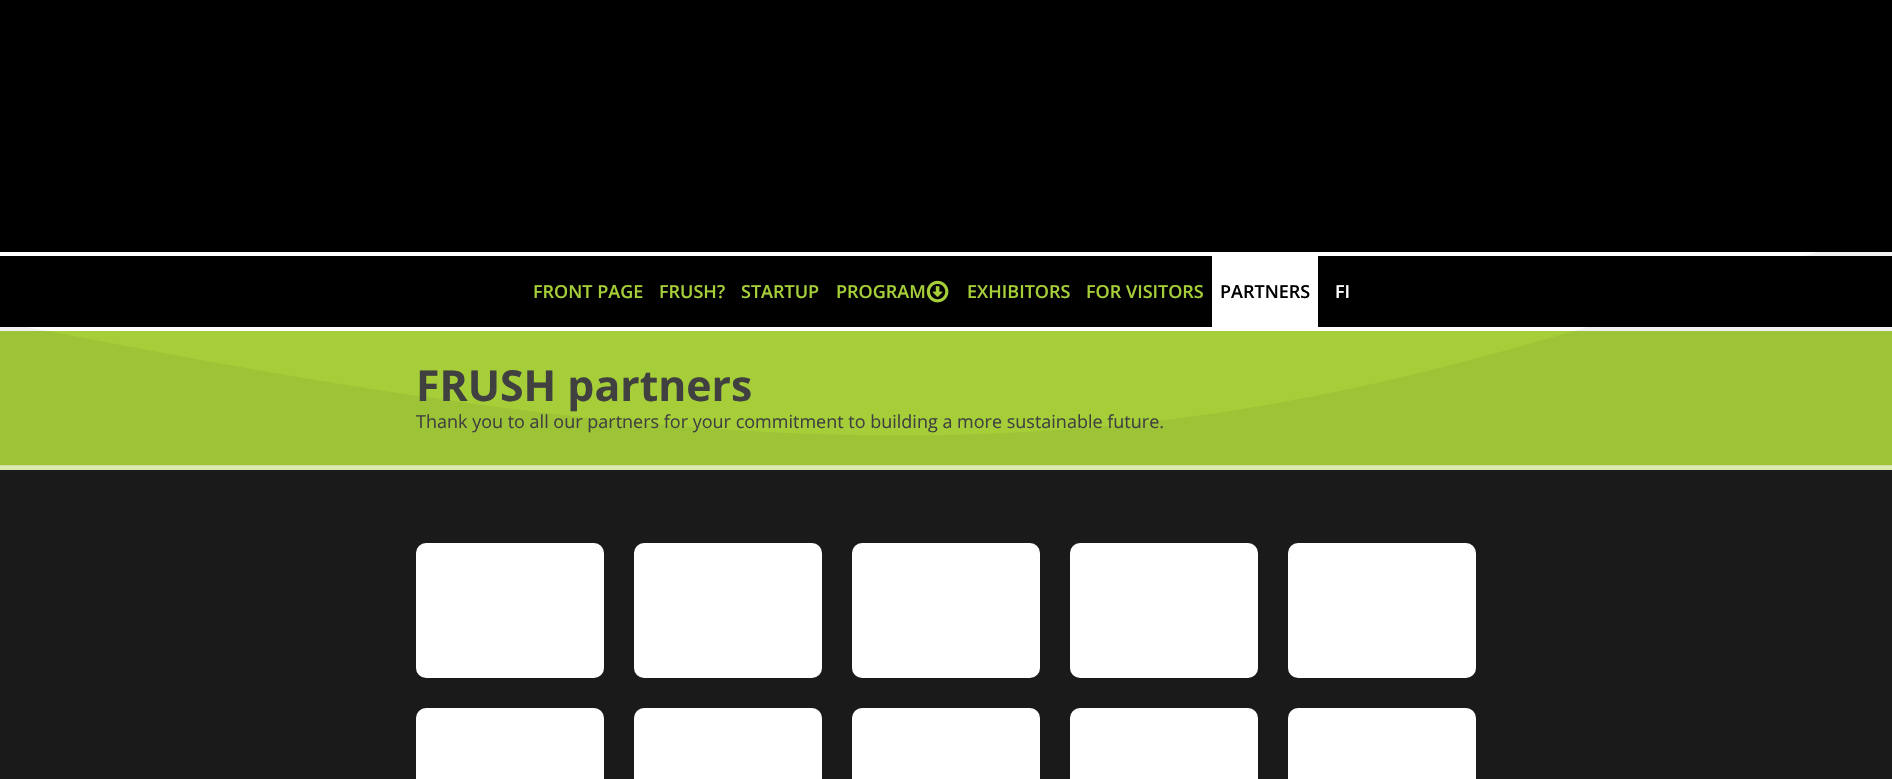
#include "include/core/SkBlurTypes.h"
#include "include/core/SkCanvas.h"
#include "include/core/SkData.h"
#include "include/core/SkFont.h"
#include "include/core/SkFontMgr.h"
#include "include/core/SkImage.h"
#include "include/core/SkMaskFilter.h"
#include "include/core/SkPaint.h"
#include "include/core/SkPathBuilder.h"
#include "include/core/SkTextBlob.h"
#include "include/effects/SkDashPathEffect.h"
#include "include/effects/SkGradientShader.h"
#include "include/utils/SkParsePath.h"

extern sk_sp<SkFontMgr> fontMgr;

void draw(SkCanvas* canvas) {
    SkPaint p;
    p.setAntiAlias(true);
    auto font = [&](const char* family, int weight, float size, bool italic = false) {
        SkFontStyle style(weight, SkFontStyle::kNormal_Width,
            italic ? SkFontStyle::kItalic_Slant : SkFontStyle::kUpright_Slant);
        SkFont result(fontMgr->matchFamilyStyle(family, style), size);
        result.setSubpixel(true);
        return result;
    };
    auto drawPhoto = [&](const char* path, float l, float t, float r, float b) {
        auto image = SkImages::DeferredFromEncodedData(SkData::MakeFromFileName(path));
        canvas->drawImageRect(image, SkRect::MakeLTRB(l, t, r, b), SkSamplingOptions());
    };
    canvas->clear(0xFF000000);
    p.setColor(0xFFFFFFFF);
    canvas->drawRect(SkRect::MakeLTRB(0, 252, 1892, 256), p);
    canvas->drawRect(SkRect::MakeLTRB(0, 327, 1892, 331), p);
    auto font1 = font("Open Sans", 600, 18);
    p.setColor(0xFFA6CE39);
    {
        const struct { const char* s; float x, y; } items[] = {
            {"FRONT PAGE", 533, 298},
            {"FRUSH?", 659, 298},
            {"STARTUP", 741, 298},
            {"PROGRAM", 836, 298},
        };
        for (auto [s, x, y] : items) {
            canvas->drawString(s, x, y, font1, p);
        }
    }
    drawPhoto("media/1.png", 926, 280, 949, 303);
    canvas->drawString("EXHIBITORS", 967, 298, font1, p);
    canvas->drawString("FOR VISITORS", 1086, 298, font1, p);
    p.setColor(0xFFFFFFFF);
    canvas->drawRect(SkRect::MakeLTRB(1212, 256, 1318, 327), p);
    p.setColor(0xFF000000);
    canvas->drawString("PARTNERS", 1220, 298, font1, p);
    p.setColor(0xFFFFFFFF);
    canvas->drawString("FI", 1335, 298, font1, p);
    p.setColor(0xFFA6CE39);
    canvas->drawRect(SkRect::MakeLTRB(0, 331, 1892, 465), p);
    p.setColor(0xFFDBEBB0);
    canvas->drawRect(SkRect::MakeLTRB(0, 465, 1892, 470), p);
    p.setColor(0x0D000000);
    canvas->drawPath(SkPathBuilder().moveTo(0, 322).lineTo(105, 342).cubicTo(210, 362, 420, 402, 631, 422).cubicTo(841, 442, 1051, 442, 1261, 406).cubicTo(1472, 370, 1682, 298, 1787, 262).lineTo(1892, 226).lineTo(1892, 466).lineTo(0, 466).close().detach(), p);
    auto font2 = font("Open Sans", 700, 42.75f);
    p.setColor(0xFF404040);
    canvas->drawString("FRUSH partners", 416, 401, font2, p);
    auto font3 = font("Open Sans", 400, 18);
    canvas->drawString("Thank you to all our partners for your commitment to building a more sustainable future.", 416, 428, font3, p);
    p.setColor(0xFF1A1A1A);
    canvas->drawRect(SkRect::MakeLTRB(0, 470, 1892, 779), p);
    p.setColor(0xFFFFFFFF);
    canvas->drawRoundRect(SkRect::MakeLTRB(416, 543, 604, 678), 10, 10, p);
    canvas->drawRoundRect(SkRect::MakeLTRB(634, 543, 822, 678), 10, 10, p);
    canvas->drawRoundRect(SkRect::MakeLTRB(852, 543, 1040, 678), 10, 10, p);
    canvas->drawRoundRect(SkRect::MakeLTRB(1070, 543, 1258, 678), 10, 10, p);
    canvas->drawRoundRect(SkRect::MakeLTRB(1288, 543, 1476, 678), 10, 10, p);
    canvas->drawRoundRect(SkRect::MakeLTRB(416, 708, 604, 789), 10, 10, p);
    canvas->drawRoundRect(SkRect::MakeLTRB(634, 708, 822, 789), 10, 10, p);
    canvas->drawRoundRect(SkRect::MakeLTRB(852, 708, 1040, 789), 10, 10, p);
    canvas->drawRoundRect(SkRect::MakeLTRB(1070, 708, 1258, 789), 10, 10, p);
    canvas->drawRoundRect(SkRect::MakeLTRB(1288, 708, 1476, 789), 10, 10, p);
}
